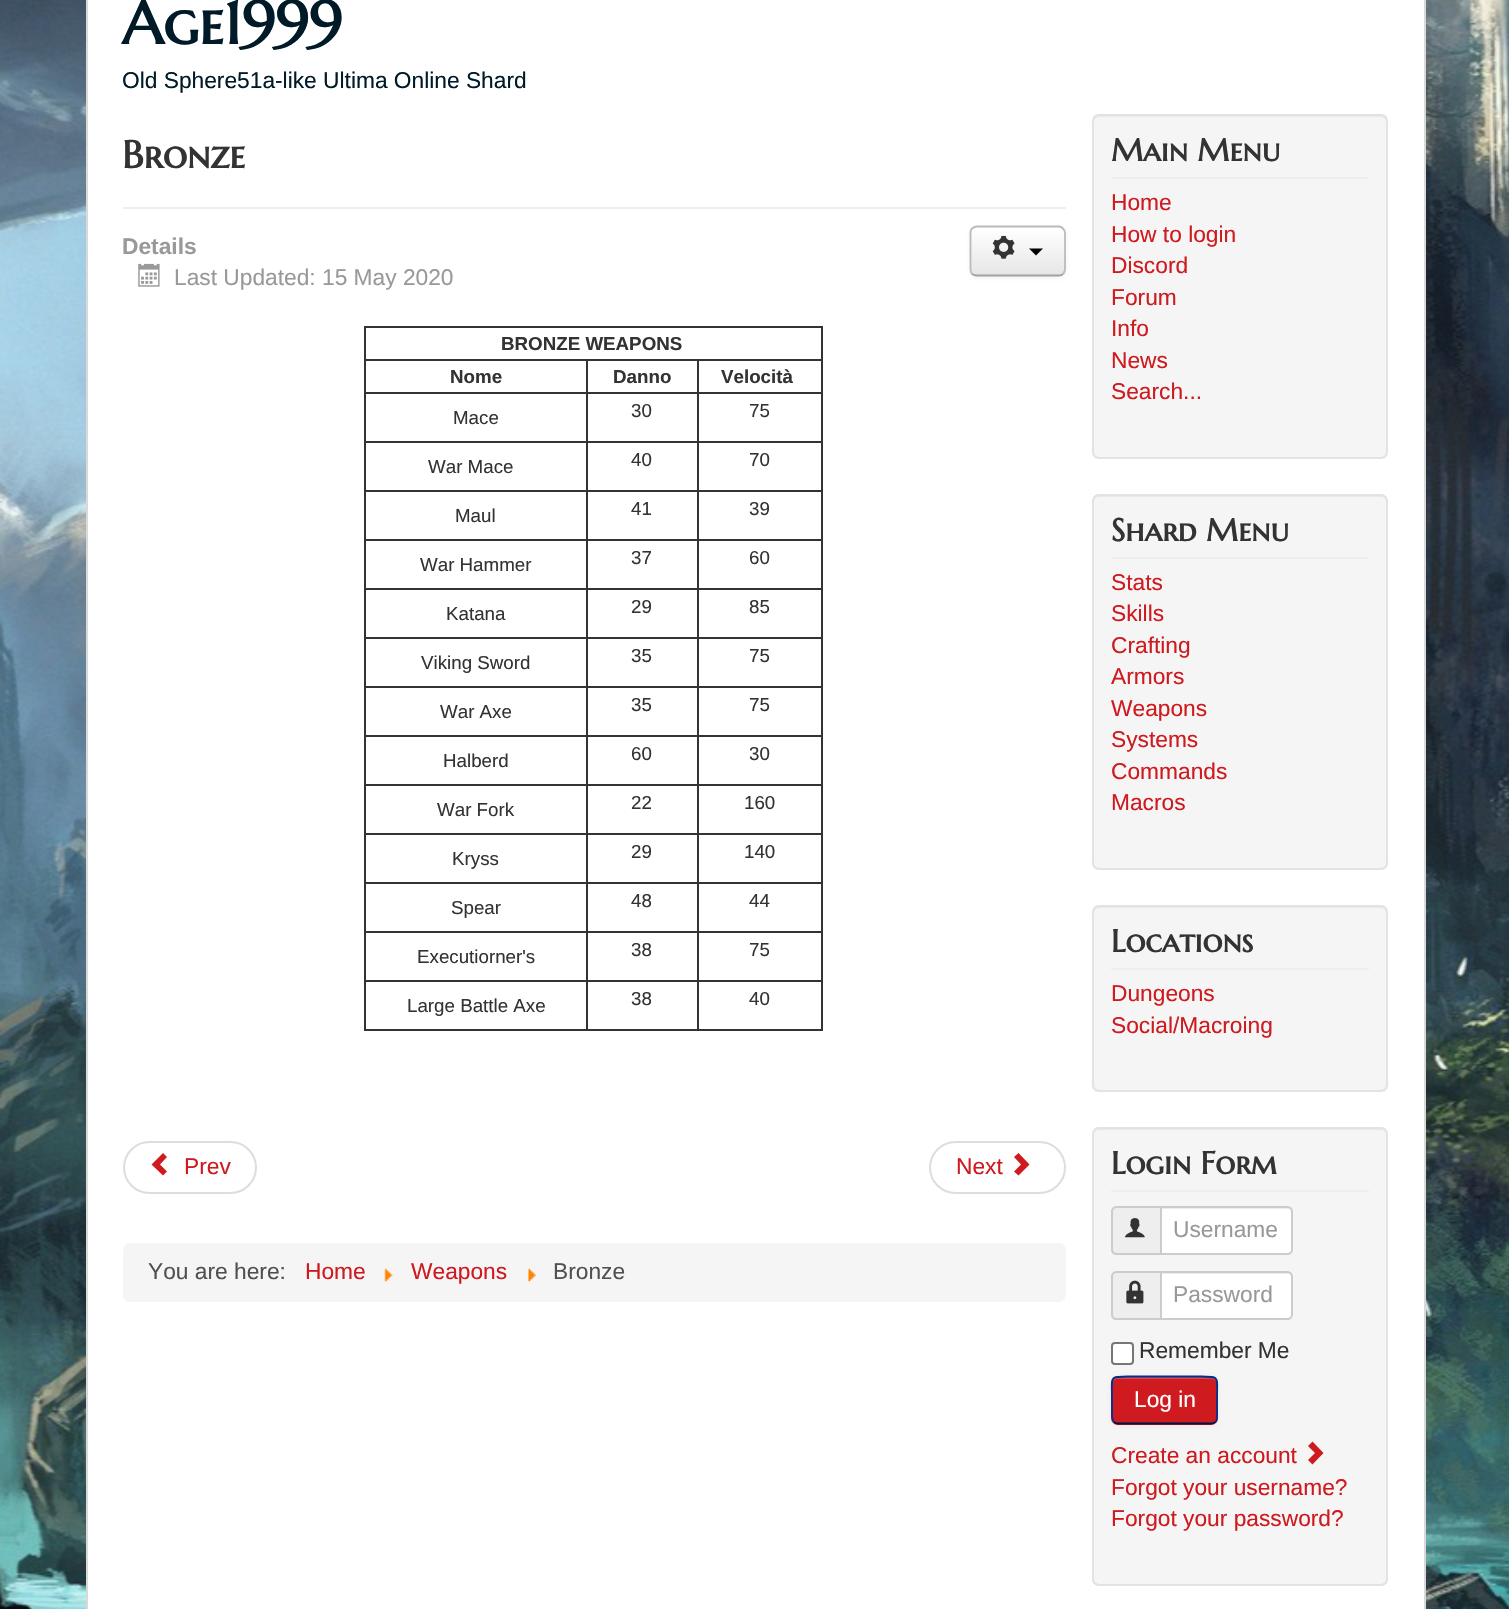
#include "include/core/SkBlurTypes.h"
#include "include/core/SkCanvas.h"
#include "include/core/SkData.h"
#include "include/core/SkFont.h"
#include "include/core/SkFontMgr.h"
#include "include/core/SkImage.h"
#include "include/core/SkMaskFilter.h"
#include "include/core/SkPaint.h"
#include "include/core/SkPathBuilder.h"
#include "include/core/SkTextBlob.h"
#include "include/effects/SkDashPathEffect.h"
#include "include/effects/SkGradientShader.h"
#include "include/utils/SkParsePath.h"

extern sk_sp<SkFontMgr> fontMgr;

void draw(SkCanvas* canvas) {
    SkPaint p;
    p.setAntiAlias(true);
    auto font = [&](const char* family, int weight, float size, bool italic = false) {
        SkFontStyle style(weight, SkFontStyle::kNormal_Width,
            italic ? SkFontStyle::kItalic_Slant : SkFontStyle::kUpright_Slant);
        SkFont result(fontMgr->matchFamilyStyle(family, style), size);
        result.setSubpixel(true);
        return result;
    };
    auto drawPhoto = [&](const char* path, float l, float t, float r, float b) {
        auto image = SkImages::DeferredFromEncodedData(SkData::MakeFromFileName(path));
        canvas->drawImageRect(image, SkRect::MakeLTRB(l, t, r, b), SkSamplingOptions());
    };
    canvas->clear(0xFFFFFFFF);
    drawPhoto("media/1.png", 0, 0, 1509, 1609);
    p.setColor(0xFFFFFFFF);
    canvas->drawRect(SkRect::MakeLTRB(87, -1, 1425, 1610), p);
    p.setStyle(SkPaint::kStroke_Style);
    p.setStrokeWidth(2);
    p.setColor(0xFFD9D9D9);
    canvas->drawRect(SkRect::MakeLTRB(87, -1, 1425, 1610), p);
    auto font1 = font("Marcellus SC", 700, 60.5f);
    p.setStyle(SkPaint::kFill_Style);
    p.setColor(0xFF001A27);
    canvas->drawString("Age1999", 122, 44, font1, p);
    auto font2 = font("Liberation Sans", 400, 22.75f);
    canvas->drawString("Old Sphere51a-like Ultima Online Shard", 122, 88, font2, p);
    p.setColor(0xFFEEEEEE);
    canvas->drawRect(SkRect::MakeLTRB(123, 207, 1066, 209), p);
    auto font3 = font("Marcellus SC", 700, 38.5f);
    p.setColor(0xFF333333);
    canvas->drawString("Bronze", 122, 168, font3, p);
    auto font4 = font("Liberation Sans", 700, 22.75f);
    p.setColor(0xFF999999);
    canvas->drawString("Details", 122, 254, font4, p);
    drawPhoto("media/2.png", 138, 263, 160, 287);
    canvas->drawString("Last Updated: 15 May 2020", 174, 285, font2, p);
    p.setColor(0x0D000000);
    p.setMaskFilter(SkMaskFilter::MakeBlur(kNormal_SkBlurStyle, 2));
    canvas->drawRoundRect(SkRect::MakeLTRB(970, 228, 1066, 278), 7, 7, p);
    p.setMaskFilter(nullptr);
    p.setColor(0xFFF5F5F5);
    canvas->drawRoundRect(SkRect::MakeLTRB(970, 226, 1066, 277), 7, 7, p);
    canvas->save();
    canvas->clipPath(SkPathBuilder().moveTo(977, 226).lineTo(1059, 226).cubicTo(1063, 226, 1066, 229, 1066, 233).lineTo(1066, 270).cubicTo(1066, 274, 1063, 277, 1059, 277).lineTo(977, 277).cubicTo(973, 277, 970, 274, 970, 270).lineTo(970, 233).cubicTo(970, 229, 973, 226, 977, 226).close().detach(), true);
    {
        const SkColor colors[] = {0xFFFFFFFF, 0xFFE6E6E6};
        const float stops[] = {0, 1};
        const SkPoint ends[] = {{1018, 228}, {1018, 275}};
        p.setShader(SkGradientShader::MakeLinear(ends, colors, stops, 2, SkTileMode::kClamp));
        p.setAlpha(255);
    }
    canvas->drawRect(SkRect::MakeLTRB(970, 228, 1066, 275), p);
    canvas->restore();
    p.setShader(nullptr);
    p.setColor(0xFFFFFFFF);
    canvas->drawPath(SkPathBuilder().moveTo(976, 229).lineTo(1059, 229).cubicTo(1062, 229, 1064, 232, 1064, 234).cubicTo(1064, 225, 1051, 228, 1045, 228).lineTo(990, 228).cubicTo(984, 228, 971, 225, 971, 234).cubicTo(971, 232, 974, 229, 976, 229).close().detach(), p);
    p.setStyle(SkPaint::kStroke_Style);
    p.setStrokeWidth(1.8f);
    p.setColor(0xFFA2A2A2);
    canvas->drawPath(SkPathBuilder().moveTo(1063, 274).cubicTo(1062, 275, 1060.5f, 275.5f, 1059, 275.5f).lineTo(976.5f, 275.5f).cubicTo(975, 275.5f, 973.5f, 275, 972, 274).detach(), p);
    p.setColor(0xFFBBBBBB);
    canvas->drawPath(SkPathBuilder().moveTo(972, 274).cubicTo(971, 272.5f, 970.5f, 271, 970.5f, 269.5f).lineTo(970.5f, 233).cubicTo(970.5f, 231, 971, 229.5f, 972, 228.5f).cubicTo(973.5f, 227.5f, 975, 226.5f, 976.5f, 226.5f).lineTo(1059, 226.5f).cubicTo(1060.5f, 226.5f, 1062, 227.5f, 1063, 228.5f).cubicTo(1064, 229.5f, 1065, 231, 1065, 233).lineTo(1065, 269.5f).cubicTo(1065, 271, 1064, 272.5f, 1063, 274).detach(), p);
    drawPhoto("media/3.png", 992, 235, 1015, 259);
    p.setStyle(SkPaint::kFill_Style);
    p.setColor(0xFF000000);
    canvas->drawPath(SkPathBuilder().moveTo(1029, 248.5f).lineTo(1043, 248.5f).lineTo(1036, 255.5f).close().detach(), p);
    {
        const struct { float l, t, r, b; SkColor color; } items[] = {
            {364, 326, 823, 328, 0xFF333333},
            {697, 359, 823, 361, 0xFF333333},
            {697, 392, 823, 394, 0xFF333333},
            {697, 441, 823, 443, 0xFF333333},
            {697, 490, 823, 492, 0xFF333333},
            {697, 539, 823, 541, 0xFF333333},
            {697, 588, 823, 590, 0xFF333333},
            {697, 637, 823, 639, 0xFF333333},
            {697, 686, 823, 688, 0xFF333333},
            {697, 735, 823, 737, 0xFF333333},
            {697, 784, 823, 786, 0xFF333333},
            {697, 833, 823, 835, 0xFF333333},
            {697, 882, 823, 884, 0xFF333333},
            {697, 931, 823, 933, 0xFF333333},
            {697, 980, 823, 982, 0xFF333333},
            {821, 980, 823, 1031, 0xFF333333},
            {821, 931, 823, 982, 0xFF333333},
            {821, 882, 823, 933, 0xFF333333},
            {821, 833, 823, 884, 0xFF333333},
            {821, 784, 823, 835, 0xFF333333},
            {821, 735, 823, 786, 0xFF333333},
            {821, 686, 823, 737, 0xFF333333},
            {821, 637, 823, 688, 0xFF333333},
            {821, 588, 823, 639, 0xFF333333},
            {821, 539, 823, 590, 0xFF333333},
            {821, 490, 823, 541, 0xFF333333},
            {821, 441, 823, 492, 0xFF333333},
            {821, 392, 823, 443, 0xFF333333},
            {821, 359, 823, 394, 0xFF333333},
            {821, 326, 823, 361, 0xFF333333},
            {697, 1029, 823, 1031, 0xFF333333},
            {697, 980, 699, 1031, 0xFF333333},
            {586, 980, 698, 982, 0xFF333333},
            {697, 931, 699, 982, 0xFF333333},
            {586, 931, 698, 933, 0xFF333333},
            {697, 882, 699, 933, 0xFF333333},
            {586, 882, 698, 884, 0xFF333333},
            {697, 833, 699, 884, 0xFF333333},
            {586, 833, 698, 835, 0xFF333333},
            {697, 784, 699, 835, 0xFF333333},
            {586, 784, 698, 786, 0xFF333333},
            {697, 735, 699, 786, 0xFF333333},
            {586, 735, 698, 737, 0xFF333333},
            {697, 686, 699, 737, 0xFF333333},
            {586, 686, 698, 688, 0xFF333333},
            {697, 637, 699, 688, 0xFF333333},
            {586, 637, 698, 639, 0xFF333333},
            {697, 588, 699, 639, 0xFF333333},
            {586, 588, 698, 590, 0xFF333333},
            {697, 539, 699, 590, 0xFF333333},
            {586, 539, 698, 541, 0xFF333333},
            {697, 490, 699, 541, 0xFF333333},
            {586, 490, 698, 492, 0xFF333333},
            {697, 441, 699, 492, 0xFF333333},
            {586, 441, 698, 443, 0xFF333333},
            {697, 392, 699, 443, 0xFF333333},
            {586, 392, 698, 394, 0xFF333333},
            {697, 359, 699, 394, 0xFF333333},
            {586, 359, 698, 361, 0xFF333333},
            {586, 1029, 698, 1031, 0xFF333333},
            {586, 980, 588, 1031, 0xFF333333},
            {364, 980, 588, 982, 0xFF333333},
            {586, 931, 588, 982, 0xFF333333},
            {364, 931, 588, 933, 0xFF333333},
            {586, 882, 588, 933, 0xFF333333},
            {364, 882, 588, 884, 0xFF333333},
            {586, 833, 588, 884, 0xFF333333},
            {364, 833, 588, 835, 0xFF333333},
            {586, 784, 588, 835, 0xFF333333},
            {364, 784, 588, 786, 0xFF333333},
            {586, 735, 588, 786, 0xFF333333},
            {364, 735, 588, 737, 0xFF333333},
            {586, 686, 588, 737, 0xFF333333},
            {364, 686, 588, 688, 0xFF333333},
            {586, 637, 588, 688, 0xFF333333},
            {364, 637, 588, 639, 0xFF333333},
            {586, 588, 588, 639, 0xFF333333},
            {364, 588, 588, 590, 0xFF333333},
            {586, 539, 588, 590, 0xFF333333},
            {364, 539, 588, 541, 0xFF333333},
            {586, 490, 588, 541, 0xFF333333},
            {364, 490, 588, 492, 0xFF333333},
            {586, 441, 588, 492, 0xFF333333},
            {364, 441, 588, 443, 0xFF333333},
            {586, 392, 588, 443, 0xFF333333},
            {364, 392, 588, 394, 0xFF333333},
            {586, 359, 588, 394, 0xFF333333},
            {364, 359, 588, 361, 0xFF333333},
            {364, 1029, 588, 1031, 0xFF333333},
            {364, 980, 366, 1031, 0xFF333333},
            {364, 931, 366, 982, 0xFF333333},
            {364, 882, 366, 933, 0xFF333333},
            {364, 833, 366, 884, 0xFF333333},
            {364, 784, 366, 835, 0xFF333333},
            {364, 735, 366, 786, 0xFF333333},
            {364, 686, 366, 737, 0xFF333333},
            {364, 637, 366, 688, 0xFF333333},
            {364, 588, 366, 639, 0xFF333333},
            {364, 539, 366, 590, 0xFF333333},
            {364, 490, 366, 541, 0xFF333333},
            {364, 441, 366, 492, 0xFF333333},
            {364, 392, 366, 443, 0xFF333333},
            {364, 359, 366, 394, 0xFF333333},
            {364, 326, 366, 361, 0xFF333333},
        };
        for (auto [l, t, r, b, color] : items) {
            p.setColor(color);
            canvas->drawRect(SkRect::MakeLTRB(l, t, r, b), p);
        }
    }
    auto font5 = font("Liberation Sans", 700, 18.75f);
    {
        const struct { const char* s; float x, y; } items[] = {
            {"BRONZE WEAPONS", 501, 350},
            {"Nome", 450, 383},
            {"Danno", 613, 383},
            {"Velocità", 721, 383},
        };
        for (auto [s, x, y] : items) {
            canvas->drawString(s, x, y, font5, p);
        }
    }
    auto font6 = font("Liberation Sans", 400, 18.75f);
    {
        const struct { const char* s; float x, y; } items[] = {
            {"Mace", 453, 424},
            {"30", 631, 417},
            {"75", 749, 417},
            {"War Mace", 428, 473},
            {"40", 631, 466},
            {"70", 749, 466},
            {"Maul", 455, 522},
            {"41", 631, 515},
            {"39", 749, 515},
            {"War Hammer", 420, 571},
            {"37", 631, 564},
            {"60", 749, 564},
            {"Katana", 446, 620},
            {"29", 631, 613},
            {"85", 749, 613},
            {"Viking Sword", 421, 669},
            {"35", 631, 662},
            {"75", 749, 662},
            {"War Axe", 440, 718},
            {"35", 631, 711},
            {"75", 749, 711},
            {"Halberd", 443, 767},
            {"60", 631, 760},
            {"30", 749, 760},
            {"War Fork", 437, 816},
            {"22", 631, 809},
            {"160", 744, 809},
            {"Kryss", 452, 865},
            {"29", 631, 858},
            {"140", 744, 858},
            {"Spear", 451, 914},
            {"48", 631, 907},
            {"44", 749, 907},
            {"Executiorner's", 417, 963},
            {"38", 631, 956},
            {"75", 749, 956},
            {"Large Battle Axe", 407, 1012},
            {"38", 631, 1005},
            {"40", 749, 1005},
        };
        for (auto [s, x, y] : items) {
            canvas->drawString(s, x, y, font6, p);
        }
    }
    p.setStyle(SkPaint::kStroke_Style);
    p.setStrokeWidth(2);
    p.setColor(0xFFDDDDDD);
    canvas->drawRoundRect(SkRect::MakeLTRB(124, 1142, 256, 1193), 25.5f, 25.5f, p);
    p.setStyle(SkPaint::kFill_Style);
    p.setColor(0xFFCF1A1F);
    canvas->drawPath(SkPathBuilder().moveTo(163, 1175.5f).lineTo(151.5f, 1164.5f).lineTo(163, 1153).lineTo(167, 1157).lineTo(160, 1164.5f).lineTo(167, 1171.5f).close().detach(), p);
    canvas->drawString("Prev", 184, 1174, font2, p);
    p.setStyle(SkPaint::kStroke_Style);
    p.setColor(0xFFDDDDDD);
    canvas->drawRoundRect(SkRect::MakeLTRB(930, 1142, 1065, 1193), 25.5f, 25.5f, p);
    p.setStyle(SkPaint::kFill_Style);
    p.setColor(0xFFCF1A1F);
    canvas->drawString("Next", 956, 1174, font2, p);
    canvas->drawPath(SkPathBuilder().moveTo(1018.5f, 1153).lineTo(1029.5f, 1164.5f).lineTo(1018.5f, 1175.5f).lineTo(1014, 1171.5f).lineTo(1021, 1164.5f).lineTo(1014, 1157).close().detach(), p);
    p.setColor(0xFFF5F5F5);
    canvas->drawRoundRect(SkRect::MakeLTRB(123, 1243, 1066, 1302), 7, 7, p);
    p.setColor(0xFF515151);
    canvas->drawString("You are here:", 148, 1279, font2, p);
    p.setColor(0xFFCF1A1F);
    canvas->drawString("Home", 305, 1279, font2, p);
    drawPhoto("media/4.png", 384, 1268, 393, 1282);
    canvas->drawString("Weapons", 411, 1279, font2, p);
    drawPhoto("media/5.png", 528, 1268, 536, 1282);
    p.setColor(0xFF515151);
    canvas->drawString("Bronze", 553, 1279, font2, p);
    p.setColor(0xFFF5F5F5);
    canvas->drawRoundRect(SkRect::MakeLTRB(1092, 114, 1388, 459), 7, 7, p);
    p.setColor(0xFFE9E9E9);
    canvas->drawPath(SkPathBuilder().moveTo(1099, 117).lineTo(1381, 117).cubicTo(1384, 117, 1386, 120, 1386, 122).lineTo(1386, 121).cubicTo(1386, 118, 1384, 116, 1381, 116).lineTo(1099, 116).cubicTo(1096, 116, 1094, 118, 1094, 121).lineTo(1094, 122).cubicTo(1094, 120, 1096, 117, 1099, 117).close().detach(), p);
    p.setStyle(SkPaint::kStroke_Style);
    p.setColor(0xFFE3E3E3);
    canvas->drawRoundRect(SkRect::MakeLTRB(1093, 115, 1387, 458), 6, 6, p);
    p.setStyle(SkPaint::kFill_Style);
    p.setColor(0xFFEEEEEE);
    canvas->drawRect(SkRect::MakeLTRB(1111, 177, 1369, 179), p);
    auto font7 = font("Marcellus SC", 700, 31.5f);
    p.setColor(0xFF333333);
    canvas->drawString("Main Menu", 1111, 161, font7, p);
    p.setColor(0xFFCF1A1F);
    {
        const struct { const char* s; float x, y; } items[] = {
            {"Home", 1111, 210},
            {"How to login", 1111, 242},
            {"Discord", 1111, 273},
            {"Forum", 1111, 305},
            {"Info", 1111, 336},
            {"News", 1111, 368},
            {"Search...", 1111, 399},
        };
        for (auto [s, x, y] : items) {
            canvas->drawString(s, x, y, font2, p);
        }
    }
    p.setColor(0xFFF5F5F5);
    canvas->drawRoundRect(SkRect::MakeLTRB(1092, 494, 1388, 870), 7, 7, p);
    p.setColor(0xFFE9E9E9);
    canvas->drawPath(SkPathBuilder().moveTo(1099, 497).lineTo(1381, 497).cubicTo(1384, 497, 1386, 499, 1386, 502).cubicTo(1386, 499, 1385, 495, 1381, 495).lineTo(1098, 495).cubicTo(1094, 496, 1094, 499, 1094, 502).cubicTo(1094, 499, 1096, 497, 1099, 497).close().detach(), p);
    p.setStyle(SkPaint::kStroke_Style);
    p.setColor(0xFFE3E3E3);
    canvas->drawRoundRect(SkRect::MakeLTRB(1093, 495, 1387, 869), 6, 6, p);
    p.setStyle(SkPaint::kFill_Style);
    p.setColor(0xFFEEEEEE);
    canvas->drawRect(SkRect::MakeLTRB(1111, 557, 1369, 559), p);
    p.setColor(0xFF333333);
    canvas->drawString("Shard Menu", 1111, 541, font7, p);
    p.setColor(0xFFCF1A1F);
    {
        const struct { const char* s; float x, y; } items[] = {
            {"Stats", 1111, 590},
            {"Skills", 1111, 621},
            {"Crafting", 1111, 653},
            {"Armors", 1111, 684},
            {"Weapons", 1111, 716},
            {"Systems", 1111, 747},
            {"Commands", 1111, 779},
            {"Macros", 1111, 810},
        };
        for (auto [s, x, y] : items) {
            canvas->drawString(s, x, y, font2, p);
        }
    }
    p.setColor(0xFFF5F5F5);
    canvas->drawRoundRect(SkRect::MakeLTRB(1092, 905, 1388, 1092), 7, 7, p);
    p.setColor(0xFFE9E9E9);
    canvas->drawPath(SkPathBuilder().moveTo(1099, 908).lineTo(1381, 908).cubicTo(1384, 908, 1386, 911, 1386, 914).cubicTo(1386, 911, 1385, 907, 1381, 907).lineTo(1098, 907).cubicTo(1094, 908, 1094, 911, 1094, 914).cubicTo(1094, 911, 1096, 908, 1099, 908).close().detach(), p);
    p.setStyle(SkPaint::kStroke_Style);
    p.setColor(0xFFE3E3E3);
    canvas->drawRoundRect(SkRect::MakeLTRB(1093, 906, 1387, 1091), 6, 6, p);
    p.setStyle(SkPaint::kFill_Style);
    p.setColor(0xFFEEEEEE);
    canvas->drawRect(SkRect::MakeLTRB(1111, 968, 1369, 970), p);
    p.setColor(0xFF333333);
    canvas->drawString("Locations", 1111, 952, font7, p);
    p.setColor(0xFFCF1A1F);
    canvas->drawString("Dungeons", 1111, 1001, font2, p);
    canvas->drawString("Social/Macroing", 1111, 1033, font2, p);
    p.setColor(0xFFF5F5F5);
    canvas->drawRoundRect(SkRect::MakeLTRB(1092, 1127, 1388, 1586), 7, 7, p);
    p.setColor(0xFFE9E9E9);
    canvas->drawPath(SkPathBuilder().moveTo(1099, 1130).lineTo(1381, 1130).cubicTo(1384, 1130, 1386, 1133, 1386, 1136).cubicTo(1386, 1133, 1385, 1129, 1381, 1129).lineTo(1098, 1129).cubicTo(1094, 1130, 1094, 1133, 1094, 1136).cubicTo(1094, 1133, 1096, 1130, 1099, 1130).close().detach(), p);
    p.setStyle(SkPaint::kStroke_Style);
    p.setColor(0xFFE3E3E3);
    canvas->drawRoundRect(SkRect::MakeLTRB(1093, 1128, 1387, 1585), 6, 6, p);
    p.setStyle(SkPaint::kFill_Style);
    p.setColor(0xFFEEEEEE);
    canvas->drawRect(SkRect::MakeLTRB(1111, 1190, 1369, 1192), p);
    p.setColor(0xFF333333);
    canvas->drawString("Login Form", 1111, 1174, font7, p);
    p.setColor(0xFFEEEEEE);
    canvas->drawPath(SkPathBuilder().moveTo(1116, 1207).lineTo(1161, 1207).lineTo(1161, 1254).lineTo(1116, 1254).cubicTo(1114, 1254, 1112, 1252, 1112, 1250).lineTo(1112, 1211).cubicTo(1112, 1209, 1114, 1207, 1116, 1207).close().detach(), p);
    p.setStyle(SkPaint::kStroke_Style);
    p.setColor(0xFFCCCCCC);
    canvas->drawPath(SkPathBuilder().moveTo(1116, 1207).lineTo(1161, 1207).lineTo(1161, 1254).lineTo(1116, 1254).cubicTo(1114, 1254, 1112, 1252, 1112, 1250).lineTo(1112, 1211).cubicTo(1112, 1209, 1114, 1207, 1116, 1207).close().detach(), p);
    drawPhoto("media/6.png", 1125, 1218, 1145, 1238);
    p.setStyle(SkPaint::kFill_Style);
    p.setColor(0xFFFFFFFF);
    canvas->drawPath(SkPathBuilder().moveTo(1160, 1206).lineTo(1288, 1206).cubicTo(1291, 1206, 1293, 1208, 1293, 1211).lineTo(1293, 1250).cubicTo(1293, 1253, 1291, 1255, 1288, 1255).lineTo(1160, 1255).close().detach(), p);
    p.setColor(0xFFECECEC);
    canvas->drawPath(SkPathBuilder().moveTo(1162, 1209).lineTo(1288, 1209).cubicTo(1290, 1209, 1292, 1211, 1292, 1213).lineTo(1292, 1212).cubicTo(1292, 1210, 1290, 1208, 1288, 1208).lineTo(1162, 1208).close().detach(), p);
    p.setStyle(SkPaint::kStroke_Style);
    p.setColor(0xFFCCCCCC);
    canvas->drawPath(SkPathBuilder().moveTo(1161, 1207).lineTo(1288, 1207).cubicTo(1290, 1207, 1292, 1209, 1292, 1211).lineTo(1292, 1250).cubicTo(1292, 1252, 1290, 1254, 1288, 1254).lineTo(1161, 1254).close().detach(), p);
    p.setStyle(SkPaint::kFill_Style);
    p.setColor(0xFF999999);
    canvas->drawString("Username", 1173, 1237, font2, p);
    p.setColor(0xFFEEEEEE);
    canvas->drawPath(SkPathBuilder().moveTo(1116, 1272).lineTo(1161, 1272).lineTo(1161, 1319).lineTo(1116, 1319).cubicTo(1114, 1319, 1112, 1317, 1112, 1315).lineTo(1112, 1276).cubicTo(1112, 1274, 1114, 1272, 1116, 1272).close().detach(), p);
    p.setStyle(SkPaint::kStroke_Style);
    p.setColor(0xFFCCCCCC);
    canvas->drawPath(SkPathBuilder().moveTo(1116, 1272).lineTo(1161, 1272).lineTo(1161, 1319).lineTo(1116, 1319).cubicTo(1114, 1319, 1112, 1317, 1112, 1315).lineTo(1112, 1276).cubicTo(1112, 1274, 1114, 1272, 1116, 1272).close().detach(), p);
    drawPhoto("media/7.png", 1126, 1280, 1144, 1304);
    p.setStyle(SkPaint::kFill_Style);
    p.setColor(0xFFFFFFFF);
    canvas->drawPath(SkPathBuilder().moveTo(1160, 1271).lineTo(1288, 1271).cubicTo(1291, 1271, 1293, 1273, 1293, 1276).lineTo(1293, 1315).cubicTo(1293, 1318, 1291, 1320, 1288, 1320).lineTo(1160, 1320).close().detach(), p);
    p.setColor(0xFFECECEC);
    canvas->drawPath(SkPathBuilder().moveTo(1162, 1274).lineTo(1288, 1274).cubicTo(1290, 1274, 1292, 1276, 1292, 1278).lineTo(1292, 1276).cubicTo(1292, 1274, 1290, 1272, 1288, 1272).lineTo(1162, 1272).close().detach(), p);
    p.setStyle(SkPaint::kStroke_Style);
    p.setColor(0xFFCCCCCC);
    canvas->drawPath(SkPathBuilder().moveTo(1161, 1272).lineTo(1288, 1272).cubicTo(1290, 1272, 1292, 1274, 1292, 1276).lineTo(1292, 1315).cubicTo(1292, 1317, 1290, 1319, 1288, 1319).lineTo(1161, 1319).close().detach(), p);
    p.setStyle(SkPaint::kFill_Style);
    p.setColor(0xFF999999);
    canvas->drawString("Password", 1173, 1302, font2, p);
    p.setColor(0xFFFFFFFF);
    canvas->drawRoundRect(SkRect::MakeLTRB(1112, 1343, 1133, 1364), 3, 3, p);
    p.setStyle(SkPaint::kStroke_Style);
    p.setColor(0xFF767676);
    canvas->drawRoundRect(SkRect::MakeLTRB(1112, 1343, 1133, 1364), 3, 3, p);
    p.setStyle(SkPaint::kFill_Style);
    p.setColor(0xFF333333);
    canvas->drawString("Remember Me", 1139, 1358, font2, p);
    p.setColor(0x0D000000);
    p.setMaskFilter(SkMaskFilter::MakeBlur(kNormal_SkBlurStyle, 2));
    canvas->drawRoundRect(SkRect::MakeLTRB(1111, 1377, 1218, 1426), 7, 7, p);
    p.setMaskFilter(nullptr);
    p.setColor(0xFFCF1A1F);
    canvas->drawRoundRect(SkRect::MakeLTRB(1111, 1376, 1218, 1425), 7, 7, p);
    p.setColor(0xFFD9484C);
    canvas->drawPath(SkPathBuilder().moveTo(1118, 1379).lineTo(1211, 1379).cubicTo(1214, 1379, 1216, 1381, 1216, 1384).cubicTo(1216, 1373, 1204, 1377, 1196, 1377).lineTo(1134, 1377).cubicTo(1125, 1377, 1113, 1373, 1113, 1384).cubicTo(1113, 1381, 1115, 1379, 1118, 1379).close().detach(), p);
    p.setStyle(SkPaint::kStroke_Style);
    p.setStrokeWidth(1.8f);
    p.setColor(0xFF001641);
    canvas->drawPath(SkPathBuilder().moveTo(1215.5f, 1422).cubicTo(1214, 1423, 1212.5f, 1423.5f, 1211, 1423.5f).lineTo(1118, 1423.5f).cubicTo(1116.5f, 1423.5f, 1115, 1423, 1114, 1422).detach(), p);
    p.setColor(0xFF002F8D);
    canvas->drawPath(SkPathBuilder().moveTo(1114, 1422).cubicTo(1111.5f, 1419, 1112, 1415, 1112, 1411.5f).lineTo(1112, 1400).cubicTo(1112, 1374.5f, 1108, 1376.5f, 1133.5f, 1376.5f).lineTo(1195.5f, 1376.5f).cubicTo(1221, 1376.5f, 1217, 1374.5f, 1217, 1400).lineTo(1217, 1411.5f).cubicTo(1217, 1415, 1218, 1419, 1215.5f, 1422).detach(), p);
    p.setStyle(SkPaint::kFill_Style);
    p.setColor(0xFFFFFFFF);
    canvas->drawString("Log in", 1134, 1407, font2, p);
    p.setColor(0xFFCF1A1F);
    canvas->drawString("Create an account", 1111, 1463, font2, p);
    canvas->drawPath(SkPathBuilder().moveTo(1312.5f, 1441.5f).lineTo(1323.5f, 1453).lineTo(1312.5f, 1464.5f).lineTo(1308, 1460).lineTo(1315, 1453).lineTo(1308, 1446).close().detach(), p);
    canvas->drawString("Forgot your username?", 1111, 1495, font2, p);
    canvas->drawString("Forgot your password?", 1111, 1526, font2, p);
}
